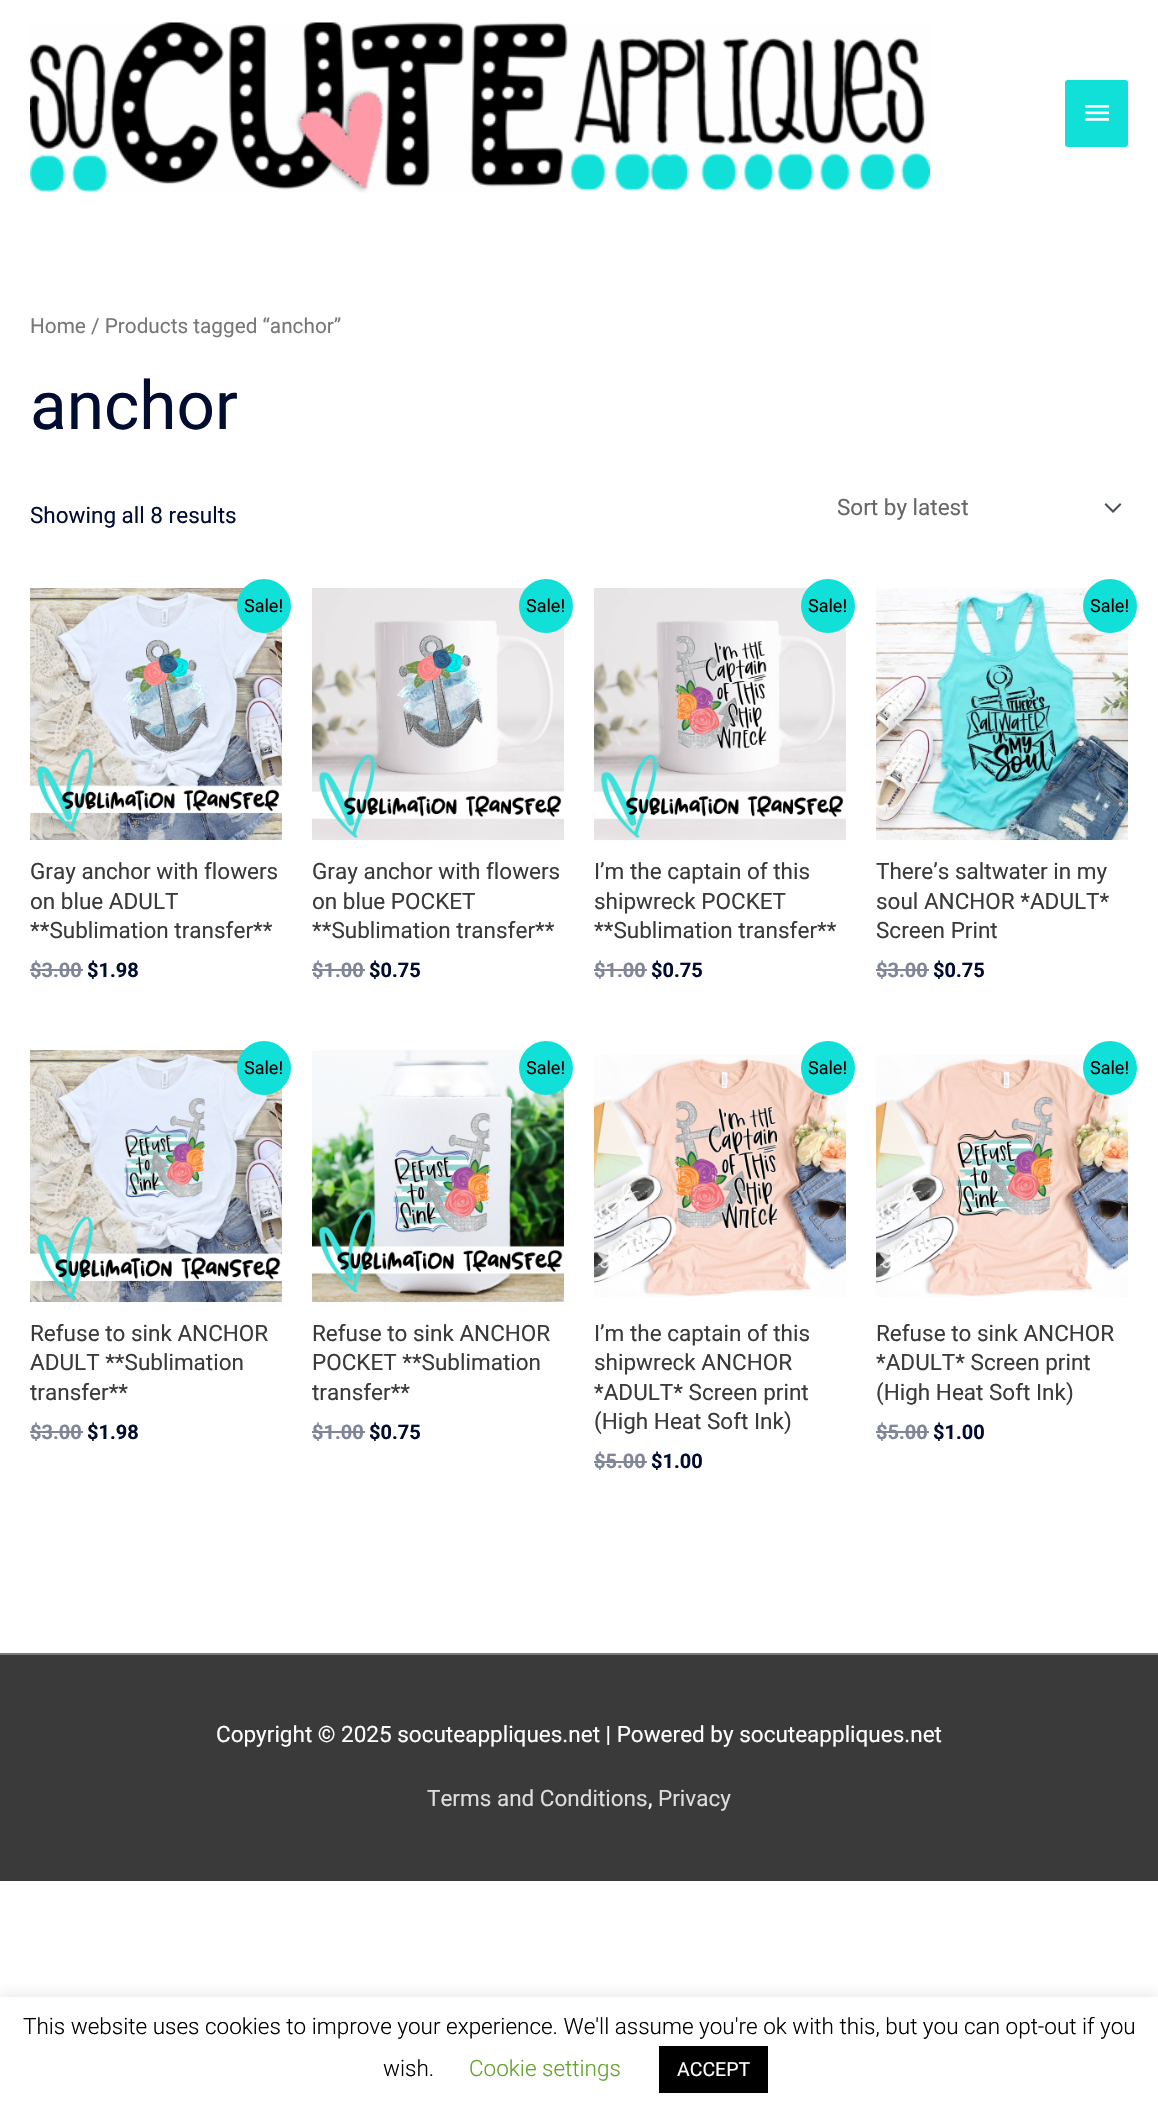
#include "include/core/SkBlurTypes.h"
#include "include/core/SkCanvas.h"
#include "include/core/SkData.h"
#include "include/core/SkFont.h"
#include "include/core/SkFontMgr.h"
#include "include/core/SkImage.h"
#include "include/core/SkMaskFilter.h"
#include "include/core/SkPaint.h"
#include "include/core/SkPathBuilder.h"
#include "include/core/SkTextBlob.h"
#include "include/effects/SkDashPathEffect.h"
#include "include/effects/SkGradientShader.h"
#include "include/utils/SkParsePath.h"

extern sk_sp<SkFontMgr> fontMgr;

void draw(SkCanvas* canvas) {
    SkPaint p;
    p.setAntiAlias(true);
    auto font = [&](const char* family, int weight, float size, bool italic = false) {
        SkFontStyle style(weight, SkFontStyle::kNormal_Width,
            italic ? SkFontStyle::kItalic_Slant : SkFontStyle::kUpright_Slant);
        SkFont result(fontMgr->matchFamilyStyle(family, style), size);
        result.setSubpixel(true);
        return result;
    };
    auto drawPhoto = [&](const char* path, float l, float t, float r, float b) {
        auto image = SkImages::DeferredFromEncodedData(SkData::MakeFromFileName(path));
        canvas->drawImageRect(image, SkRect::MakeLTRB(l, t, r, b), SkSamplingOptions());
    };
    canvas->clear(0xFFFFFFFF);
    drawPhoto("media/1.png", 30, 22, 930, 193);
    p.setColor(0xFF11E0D9);
    canvas->drawRoundRect(SkRect::MakeLTRB(1065, 80, 1128, 147), 3, 3, p);
    drawPhoto("media/2.png", 1085, 105, 1110, 121);
    auto font1 = font("Roboto", 400, 20.75f);
    p.setColor(0xFF777777);
    canvas->drawString("Home / Products tagged “anchor”", 30, 333, font1, p);
    auto font2 = font("Roboto", 400, 67.5f);
    p.setColor(0xFF000C30);
    canvas->drawString("anchor", 30, 429, font2, p);
    auto font3 = font("Roboto", 400, 22.5f);
    canvas->drawString("Showing all 8 results", 30, 523, font3, p);
    p.setColor(0xFF4B4F58);
    canvas->drawPath(SkPathBuilder().moveTo(1104.5f, 504.5f).lineTo(1113, 513).lineTo(1121.5f, 504.5f).lineTo(1120, 503).lineTo(1113, 510).lineTo(1106, 503).close().detach(), p);
    p.setColor(0xFF666666);
    canvas->drawString("Sort by latest", 837, 515, font3, p);
    drawPhoto("media/3.png", 30, 588, 282, 840);
    p.setColor(0xFF11E0D9);
    canvas->drawCircle(264, 606, 27, p);
    auto font4 = font("Roboto", 400, 18);
    p.setColor(0xFF000000);
    canvas->drawString("Sale!", 244, 612, font4, p);
    p.setColor(0xFF3A3A3A);
    {
        const struct { const char* s; float x, y; } items[] = {
            {"Gray anchor with flowers", 30, 879},
            {"on blue ADULT", 30, 909},
            {"**Sublimation transfer**", 30, 938},
        };
        for (auto [s, x, y] : items) {
            canvas->drawString(s, x, y, font3, p);
        }
    }
    auto font5 = font("Roboto", 700, 20);
    p.setColor(0xFF808698);
    canvas->drawString("$3.00", 30, 977, font5, p);
    canvas->drawRect(SkRect::MakeLTRB(30, 969, 83, 971), p);
    p.setColor(0xFF000C30);
    canvas->drawString("$1.98", 87, 977, font5, p);
    drawPhoto("media/4.png", 312, 588, 564, 840);
    p.setColor(0xFF11E0D9);
    canvas->drawCircle(546, 606, 27, p);
    p.setColor(0xFF000000);
    canvas->drawString("Sale!", 526, 612, font4, p);
    p.setColor(0xFF3A3A3A);
    {
        const struct { const char* s; float x, y; } items[] = {
            {"Gray anchor with flowers", 312, 879},
            {"on blue POCKET", 312, 909},
            {"**Sublimation transfer**", 312, 938},
        };
        for (auto [s, x, y] : items) {
            canvas->drawString(s, x, y, font3, p);
        }
    }
    p.setColor(0xFF808698);
    canvas->drawString("$1.00", 312, 977, font5, p);
    canvas->drawRect(SkRect::MakeLTRB(312, 969, 365, 971), p);
    p.setColor(0xFF000C30);
    canvas->drawString("$0.75", 369, 977, font5, p);
    drawPhoto("media/5.png", 594, 588, 846, 840);
    p.setColor(0xFF11E0D9);
    canvas->drawCircle(828, 606, 27, p);
    p.setColor(0xFF000000);
    canvas->drawString("Sale!", 808, 612, font4, p);
    p.setColor(0xFF3A3A3A);
    {
        const struct { const char* s; float x, y; } items[] = {
            {"I’m the captain of this", 594, 879},
            {"shipwreck POCKET", 594, 909},
            {"**Sublimation transfer**", 594, 938},
        };
        for (auto [s, x, y] : items) {
            canvas->drawString(s, x, y, font3, p);
        }
    }
    p.setColor(0xFF808698);
    canvas->drawString("$1.00", 594, 977, font5, p);
    canvas->drawRect(SkRect::MakeLTRB(594, 969, 647, 971), p);
    p.setColor(0xFF000C30);
    canvas->drawString("$0.75", 651, 977, font5, p);
    drawPhoto("media/6.png", 876, 588, 1128, 840);
    p.setColor(0xFF11E0D9);
    canvas->drawCircle(1110, 606, 27, p);
    p.setColor(0xFF000000);
    canvas->drawString("Sale!", 1090, 612, font4, p);
    p.setColor(0xFF3A3A3A);
    {
        const struct { const char* s; float x, y; } items[] = {
            {"There’s saltwater in my", 876, 879},
            {"soul ANCHOR *ADULT*", 876, 909},
            {"Screen Print", 876, 938},
        };
        for (auto [s, x, y] : items) {
            canvas->drawString(s, x, y, font3, p);
        }
    }
    p.setColor(0xFF808698);
    canvas->drawString("$3.00", 876, 977, font5, p);
    canvas->drawRect(SkRect::MakeLTRB(876, 969, 929, 971), p);
    p.setColor(0xFF000C30);
    canvas->drawString("$0.75", 933, 977, font5, p);
    drawPhoto("media/7.png", 30, 1050, 282, 1302);
    p.setColor(0xFF11E0D9);
    canvas->drawCircle(264, 1068, 27, p);
    p.setColor(0xFF000000);
    canvas->drawString("Sale!", 244, 1074, font4, p);
    p.setColor(0xFF3A3A3A);
    {
        const struct { const char* s; float x, y; } items[] = {
            {"Refuse to sink ANCHOR", 30, 1341},
            {"ADULT **Sublimation", 30, 1370},
            {"transfer**", 30, 1400},
        };
        for (auto [s, x, y] : items) {
            canvas->drawString(s, x, y, font3, p);
        }
    }
    p.setColor(0xFF808698);
    canvas->drawString("$3.00", 30, 1439, font5, p);
    canvas->drawRect(SkRect::MakeLTRB(30, 1431, 83, 1433), p);
    p.setColor(0xFF000C30);
    canvas->drawString("$1.98", 87, 1439, font5, p);
    drawPhoto("media/8.png", 312, 1050, 564, 1302);
    p.setColor(0xFF11E0D9);
    canvas->drawCircle(546, 1068, 27, p);
    p.setColor(0xFF000000);
    canvas->drawString("Sale!", 526, 1074, font4, p);
    p.setColor(0xFF3A3A3A);
    {
        const struct { const char* s; float x, y; } items[] = {
            {"Refuse to sink ANCHOR", 312, 1341},
            {"POCKET **Sublimation", 312, 1370},
            {"transfer**", 312, 1400},
        };
        for (auto [s, x, y] : items) {
            canvas->drawString(s, x, y, font3, p);
        }
    }
    p.setColor(0xFF808698);
    canvas->drawString("$1.00", 312, 1439, font5, p);
    canvas->drawRect(SkRect::MakeLTRB(312, 1431, 365, 1433), p);
    p.setColor(0xFF000C30);
    canvas->drawString("$0.75", 369, 1439, font5, p);
    drawPhoto("media/9.png", 594, 1055, 846, 1297);
    p.setColor(0xFF11E0D9);
    canvas->drawCircle(828, 1068, 27, p);
    p.setColor(0xFF000000);
    canvas->drawString("Sale!", 808, 1074, font4, p);
    p.setColor(0xFF3A3A3A);
    {
        const struct { const char* s; float x, y; } items[] = {
            {"I’m the captain of this", 594, 1341},
            {"shipwreck ANCHOR", 594, 1370},
            {"*ADULT* Screen print", 594, 1400},
            {"(High Heat Soft Ink)", 594, 1429},
        };
        for (auto [s, x, y] : items) {
            canvas->drawString(s, x, y, font3, p);
        }
    }
    p.setColor(0xFF808698);
    canvas->drawString("$5.00", 594, 1468, font5, p);
    canvas->drawRect(SkRect::MakeLTRB(594, 1461, 647, 1463), p);
    p.setColor(0xFF000C30);
    canvas->drawString("$1.00", 651, 1468, font5, p);
    drawPhoto("media/10.png", 876, 1055, 1128, 1297);
    p.setColor(0xFF11E0D9);
    canvas->drawCircle(1110, 1068, 27, p);
    p.setColor(0xFF000000);
    canvas->drawString("Sale!", 1090, 1074, font4, p);
    p.setColor(0xFF3A3A3A);
    {
        const struct { const char* s; float x, y; } items[] = {
            {"Refuse to sink ANCHOR", 876, 1341},
            {"*ADULT* Screen print", 876, 1370},
            {"(High Heat Soft Ink)", 876, 1400},
        };
        for (auto [s, x, y] : items) {
            canvas->drawString(s, x, y, font3, p);
        }
    }
    p.setColor(0xFF808698);
    canvas->drawString("$5.00", 876, 1439, font5, p);
    canvas->drawRect(SkRect::MakeLTRB(876, 1431, 929, 1433), p);
    p.setColor(0xFF000C30);
    canvas->drawString("$1.00", 933, 1439, font5, p);
    p.setColor(0xFF7A7A7A);
    canvas->drawRect(SkRect::MakeLTRB(0, 1653, 1158, 1655), p);
    p.setColor(0xFF3A3A3A);
    canvas->drawRect(SkRect::MakeLTRB(0, 1655, 1158, 1881), p);
    p.setColor(0xFFFFFFFF);
    canvas->drawString("Copyright © 2025 socuteappliques.net | Powered by socuteappliques.net", 216, 1742, font3, p);
    p.setColor(0xFFDDDDDD);
    canvas->drawString("Terms and Conditions", 427, 1806, font3, p);
    p.setColor(0xFFFFFFFF);
    canvas->drawString(",", 648, 1806, font3, p);
    p.setColor(0xFFDDDDDD);
    canvas->drawString("Privacy", 658, 1806, font3, p);
    canvas->save();
    canvas->clipRect(SkRect::MakeLTRB(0, 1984, 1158, 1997));
    p.setColor(0x4DACABAB);
    p.setMaskFilter(SkMaskFilter::MakeBlur(kNormal_SkBlurStyle, 7.5f));
    canvas->drawRect(SkRect::MakeLTRB(0, 1995, 1158, 2117), p);
    p.setMaskFilter(nullptr);
    canvas->restore();
    auto font6 = font("Roboto", 300, 22.5f);
    p.setColor(0xFF000000);
    canvas->drawString("This website uses cookies to improve your experience. We'll assume you're ok with this, but you can opt-out if you", 23, 2034, font6, p);
    canvas->drawString("wish.", 383, 2076, font6, p);
    p.setColor(0xFF62A329);
    canvas->drawString("Cookie settings", 469, 2076, font6, p);
    p.setColor(0xFF000000);
    canvas->drawRect(SkRect::MakeLTRB(659, 2046, 768, 2093), p);
    auto font7 = font("Roboto", 400, 19.5f);
    p.setColor(0xFFFFFFFF);
    canvas->drawString("ACCEPT", 677, 2076, font7, p);
}
